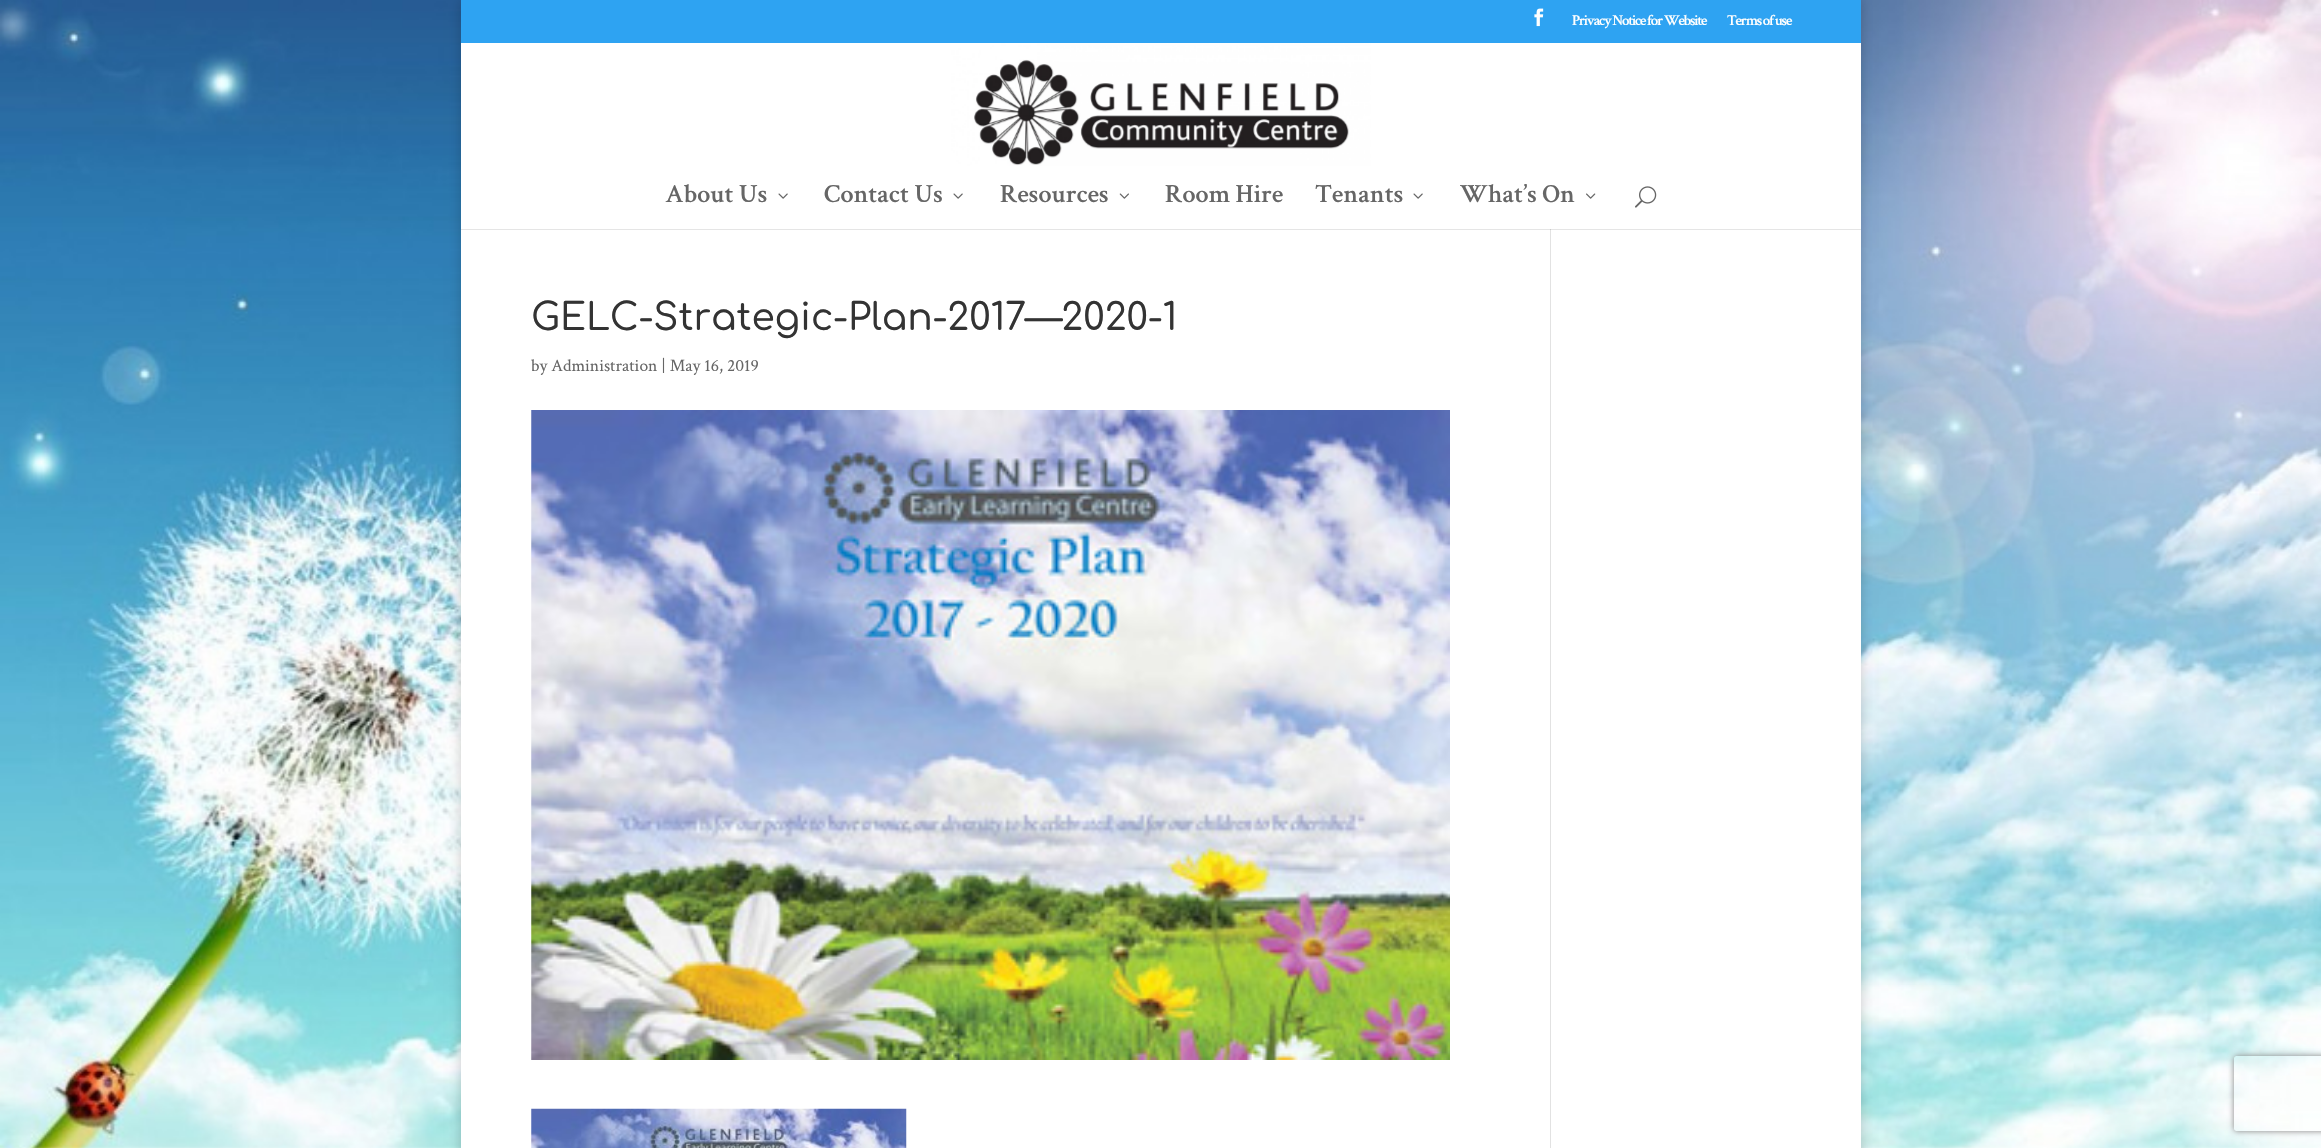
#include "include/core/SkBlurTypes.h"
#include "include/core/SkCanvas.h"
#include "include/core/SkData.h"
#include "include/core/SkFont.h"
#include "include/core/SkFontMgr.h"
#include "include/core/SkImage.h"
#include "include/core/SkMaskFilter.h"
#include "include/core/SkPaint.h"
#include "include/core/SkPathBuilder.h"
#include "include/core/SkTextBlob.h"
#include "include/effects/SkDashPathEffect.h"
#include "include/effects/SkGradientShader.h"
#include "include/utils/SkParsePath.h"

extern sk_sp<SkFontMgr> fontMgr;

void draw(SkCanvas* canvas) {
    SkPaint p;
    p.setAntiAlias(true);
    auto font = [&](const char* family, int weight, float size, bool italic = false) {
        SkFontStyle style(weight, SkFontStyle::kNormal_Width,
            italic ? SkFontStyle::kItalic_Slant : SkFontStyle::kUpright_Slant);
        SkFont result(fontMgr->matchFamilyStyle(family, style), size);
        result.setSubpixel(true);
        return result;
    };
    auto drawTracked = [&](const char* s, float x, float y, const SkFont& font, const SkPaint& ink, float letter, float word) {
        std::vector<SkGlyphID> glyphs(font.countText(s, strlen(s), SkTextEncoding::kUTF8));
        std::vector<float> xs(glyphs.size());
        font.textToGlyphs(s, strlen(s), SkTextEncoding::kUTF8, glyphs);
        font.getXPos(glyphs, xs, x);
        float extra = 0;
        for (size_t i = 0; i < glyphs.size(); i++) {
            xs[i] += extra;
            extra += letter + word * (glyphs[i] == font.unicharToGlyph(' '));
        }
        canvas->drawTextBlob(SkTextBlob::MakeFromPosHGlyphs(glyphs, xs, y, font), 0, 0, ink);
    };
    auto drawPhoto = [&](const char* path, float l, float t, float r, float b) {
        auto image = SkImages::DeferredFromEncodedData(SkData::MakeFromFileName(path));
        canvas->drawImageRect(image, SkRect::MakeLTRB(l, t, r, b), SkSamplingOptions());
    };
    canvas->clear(0xFFFFFFFF);
    drawPhoto("media/1.png", 0, 0, 2321, 1148);
    p.setColor(0x33000000);
    p.setMaskFilter(SkMaskFilter::MakeBlur(kNormal_SkBlurStyle, 6));
    canvas->drawRect(SkRect::MakeLTRB(461, 0, 1861, 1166), p);
    p.setMaskFilter(nullptr);
    p.setColor(0xFF2EA3F2);
    canvas->drawRect(SkRect::MakeLTRB(461, 0, 1861, 43), p);
    drawPhoto("media/2.png", 1534, 8, 1544, 27);
    auto font1 = font("Crimson Text", 600, 15);
    p.setColor(0xFFFFFFFF);
    drawTracked("Privacy Notice for Website", 1572, 25, font1, p, -1.25f, 0);
    drawTracked("Terms of use", 1727, 25, font1, p, -1.25f, 0);
    canvas->drawRect(SkRect::MakeLTRB(461, 229, 1861, 1148), p);
    p.setColor(0xFFE2E2E2);
    canvas->drawRect(SkRect::MakeLTRB(1550, 228, 1551, 1148), p);
    p.setColor(0x1A000000);
    canvas->drawPath(SkPathBuilder().moveTo(461, 44).lineTo(461, 230).lineTo(1861, 230).lineTo(1861, 229).lineTo(461, 229).close().detach(), p);
    p.setColor(0xFFFFFFFF);
    canvas->drawRect(SkRect::MakeLTRB(461, 43, 1861, 229), p);
    drawPhoto("media/3.png", 951, 43, 1372, 166);
    auto font2 = font("Crimson Text", 600, 26.25f);
    p.setColor(0xFF666666);
    canvas->drawString("About Us", 665, 202, font2, p);
    drawPhoto("media/4.png", 778, 193, 788, 199);
    canvas->drawString("Contact Us", 824, 202, font2, p);
    drawPhoto("media/4.png", 953, 193, 963, 199);
    canvas->drawString("Resources", 1000, 202, font2, p);
    drawPhoto("media/5.png", 1119, 193, 1129, 199);
    canvas->drawString("Room Hire", 1165, 202, font2, p);
    canvas->drawString("Tenants", 1315, 202, font2, p);
    drawPhoto("media/4.png", 1413, 193, 1423, 199);
    canvas->drawString("What’s On", 1460, 202, font2, p);
    drawPhoto("media/6.png", 1586, 193, 1596, 199);
    drawPhoto("media/7.png", 1635, 186, 1657, 208);
    auto font3 = font("Comfortaa", 500, 37.5f);
    p.setColor(0xFF333333);
    canvas->drawString("GELC-Strategic-Plan-2017—2020-1", 531, 330, font3, p);
    auto font4 = font("Crimson Text", 400, 17.5f);
    p.setColor(0xFF666666);
    canvas->drawString("by Administration | May 16, 2019", 531, 371, font4, p);
    drawPhoto("media/8.png", 531, 410, 1450, 1060);
    drawPhoto("media/9.png", 531, 1108, 907, 1148);
    canvas->save();
    canvas->clipPath(SkPathBuilder(SkPathFillType::kEvenOdd).moveTo(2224, 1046).lineTo(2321, 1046).lineTo(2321, 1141).lineTo(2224, 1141).close().moveTo(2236.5f, 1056).lineTo(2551.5f, 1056).cubicTo(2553, 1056, 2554, 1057, 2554, 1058.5f).lineTo(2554, 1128.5f).cubicTo(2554, 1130, 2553, 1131, 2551.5f, 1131).lineTo(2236.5f, 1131).cubicTo(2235, 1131, 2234, 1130, 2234, 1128.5f).lineTo(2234, 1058.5f).cubicTo(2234, 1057, 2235, 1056, 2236.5f, 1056).close().detach(), true);
    p.setColor(0xFF808080);
    p.setMaskFilter(SkMaskFilter::MakeBlur(kNormal_SkBlurStyle, 3));
    canvas->drawRoundRect(SkRect::MakeLTRB(2234, 1056, 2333, 1131), 2.5f, 2.5f, p);
    p.setMaskFilter(nullptr);
    canvas->restore();
}
